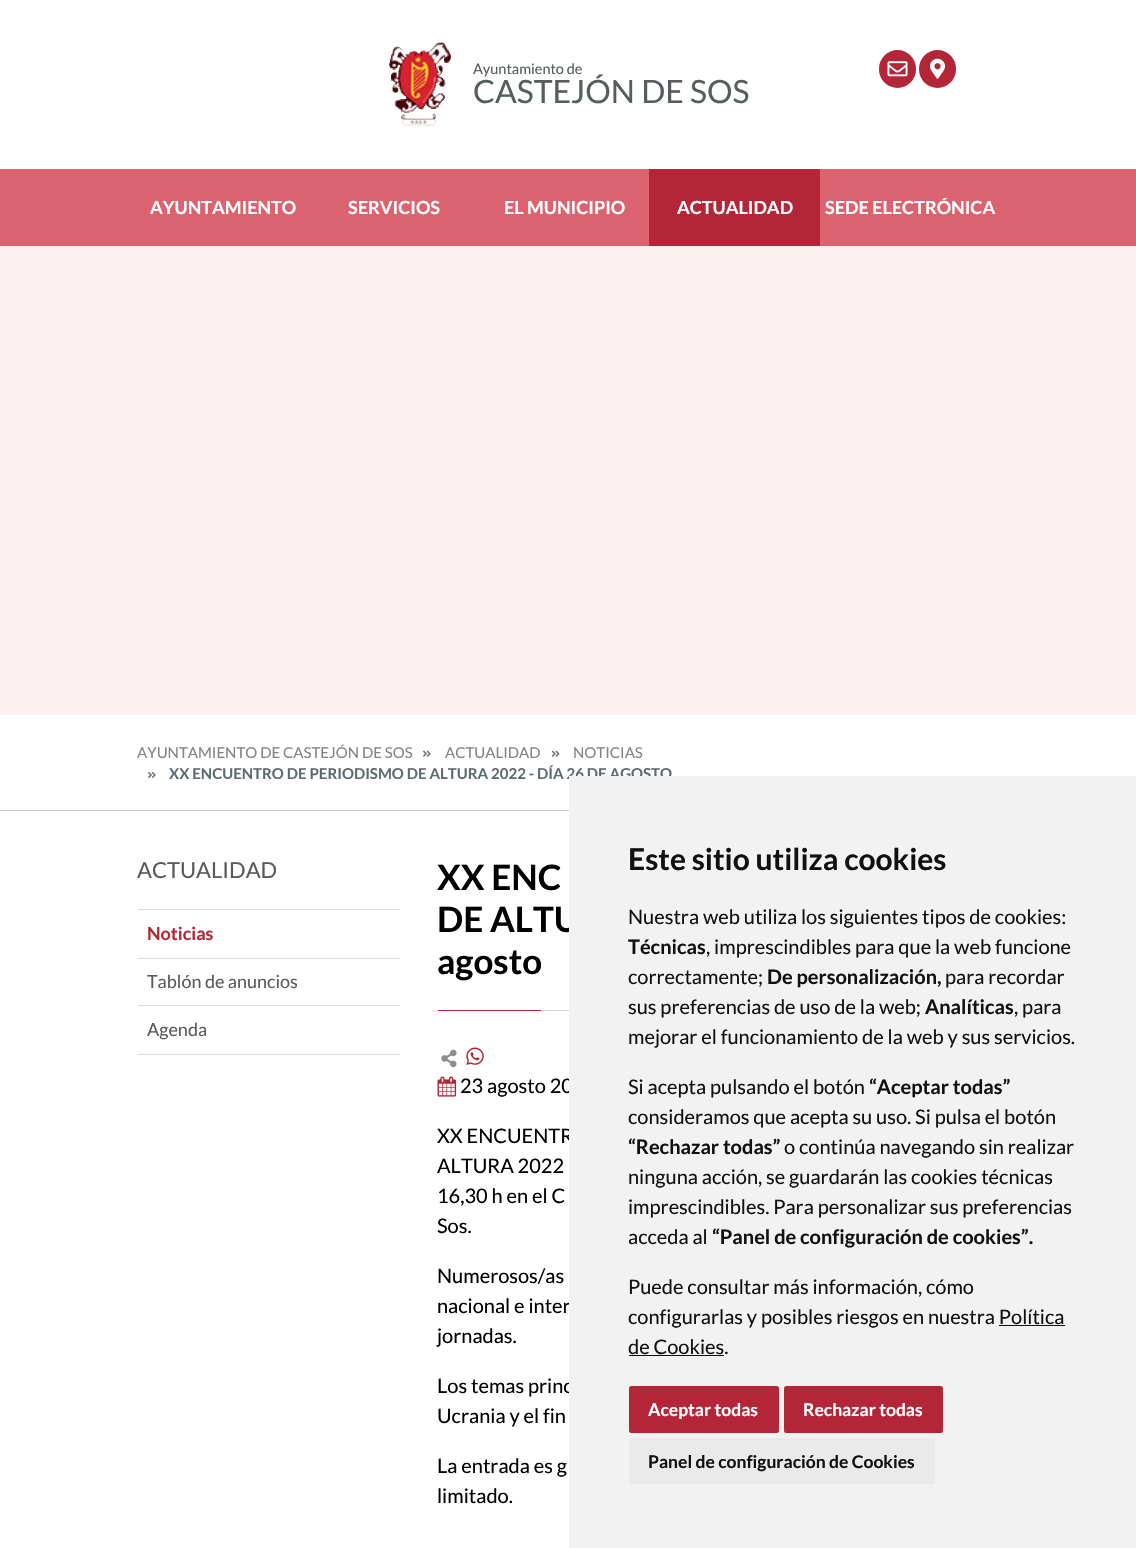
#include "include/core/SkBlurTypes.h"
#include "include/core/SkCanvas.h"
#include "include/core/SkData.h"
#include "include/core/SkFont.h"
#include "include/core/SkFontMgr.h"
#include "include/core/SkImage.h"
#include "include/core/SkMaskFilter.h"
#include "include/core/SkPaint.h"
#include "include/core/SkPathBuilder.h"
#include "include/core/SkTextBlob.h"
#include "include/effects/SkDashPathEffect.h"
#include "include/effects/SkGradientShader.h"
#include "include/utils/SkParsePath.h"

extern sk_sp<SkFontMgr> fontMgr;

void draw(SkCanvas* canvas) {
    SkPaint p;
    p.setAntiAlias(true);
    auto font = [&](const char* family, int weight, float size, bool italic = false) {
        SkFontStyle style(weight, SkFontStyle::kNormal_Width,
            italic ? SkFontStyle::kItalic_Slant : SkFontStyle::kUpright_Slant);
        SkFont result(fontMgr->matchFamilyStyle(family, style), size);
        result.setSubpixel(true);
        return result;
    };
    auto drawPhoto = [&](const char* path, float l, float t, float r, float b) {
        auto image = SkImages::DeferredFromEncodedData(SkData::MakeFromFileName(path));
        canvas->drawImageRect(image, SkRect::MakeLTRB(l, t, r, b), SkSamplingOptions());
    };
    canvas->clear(0xFFFFFFFF);
    drawPhoto("media/1.png", 389, 42, 451, 126);
    auto font1 = font("Lato", 400, 14.5f);
    p.setColor(0xFF565D5E);
    canvas->drawString("Ayuntamiento de", 473, 74, font1, p);
    auto font2 = font("Lato", 400, 32);
    canvas->drawString("CASTEJÓN DE SOS", 473, 103, font2, p);
    p.setColor(0xFFB42637);
    canvas->drawRoundRect(SkRect::MakeLTRB(879, 50, 916, 88), 18.5f, 18.5f, p);
    drawPhoto("media/2.png", 887, 61, 908, 77);
    canvas->drawRoundRect(SkRect::MakeLTRB(919, 50, 956, 88), 18.5f, 18.5f, p);
    drawPhoto("media/3.png", 930, 58, 945, 79);
    p.setColor(0xFFDB636F);
    canvas->drawRect(SkRect::MakeLTRB(0, 169, 1136, 246), p);
    auto font3 = font("Lato", 700, 18);
    p.setColor(0xFFFFFFFF);
    {
        const struct { const char* s; float x, y; } items[] = {
            {"AYUNTAMIENTO", 150, 214},
            {"SERVICIOS", 348, 214},
            {"EL MUNICIPIO", 504, 214},
        };
        for (auto [s, x, y] : items) {
            canvas->drawString(s, x, y, font3, p);
        }
    }
    p.setColor(0xFFB42637);
    canvas->drawRect(SkRect::MakeLTRB(649, 169, 820, 246), p);
    p.setColor(0xFFFFFFFF);
    canvas->drawString("ACTUALIDAD", 677, 214, font3, p);
    canvas->drawString("SEDE ELECTRÓNICA", 825, 214, font3, p);
    p.setColor(0xFFFCF0F1);
    canvas->drawRect(SkRect::MakeLTRB(0, 246, 1136, 715), p);
    p.setColor(0xFFCAC9C9);
    canvas->drawRect(SkRect::MakeLTRB(0, 810, 569, 811), p);
    auto font4 = font("Lato", 400, 15);
    p.setColor(0xFF838383);
    canvas->drawString("AYUNTAMIENTO DE CASTEJÓN DE SOS", 137, 758, font4, p);
    drawPhoto("media/4.png", 423, 750, 431, 757);
    canvas->drawString("ACTUALIDAD", 445, 758, font4, p);
    drawPhoto("media/5.png", 551, 750, 560, 757);
    canvas->drawString("NOTICIAS", 573, 758, font4, p);
    drawPhoto("media/6.png", 148, 771, 156, 779);
    auto font5 = font("Lato", 700, 15);
    p.setColor(0xFF5E6A71);
    canvas->drawString("XX ENCUENTRO DE PERIODISMO DE ALTURA 2022 - DÍA 26 DE AGOSTO", 169, 779, font5, p);
    p.setColor(0xFFD9DEE1);
    canvas->drawRect(SkRect::MakeLTRB(138, 909, 400, 910), p);
    auto font6 = font("Lato", 400, 22);
    p.setColor(0xFF5A5A57);
    canvas->drawString("ACTUALIDAD", 137, 878, font6, p);
    p.setColor(0xFFD9DEE1);
    canvas->drawRect(SkRect::MakeLTRB(138, 958, 400, 959), p);
    p.setColor(0xFFB42637);
    canvas->drawString("Noticias", 147, 940, font3, p);
    p.setColor(0xFFD9DEE1);
    canvas->drawRect(SkRect::MakeLTRB(138, 1005, 400, 1006), p);
    auto font7 = font("Lato", 400, 18);
    p.setColor(0xFF5A5A57);
    canvas->drawString("Tablón de anuncios", 147, 988, font7, p);
    p.setColor(0xFFD9DEE1);
    canvas->drawRect(SkRect::MakeLTRB(138, 1054, 400, 1055), p);
    p.setColor(0xFF5A5A57);
    canvas->drawString("Agenda", 147, 1036, font7, p);
    auto font8 = font("Lato", 700, 35);
    p.setColor(0xFF000000);
    {
        const struct { const char* s; float x, y; } items[] = {
            {"XX ENC", 437, 890},
            {"DE ALTU", 437, 932},
            {"agosto", 437, 974},
        };
        for (auto [s, x, y] : items) {
            canvas->drawString(s, x, y, font8, p);
        }
    }
    p.setColor(0xFFB42637);
    canvas->drawRect(SkRect::MakeLTRB(438, 1010, 541, 1011), p);
    p.setColor(0xFFD4D4D4);
    canvas->drawRect(SkRect::MakeLTRB(541, 1010, 569, 1011), p);
    drawPhoto("media/7.png", 441, 1049, 457, 1068);
    drawPhoto("media/8.png", 466, 1047, 484, 1065);
    drawPhoto("media/9.png", 437, 1076, 457, 1097);
    auto font9 = font("Lato", 400, 20);
    p.setColor(0xFF000000);
    {
        const struct { const char* s; float x, y; } items[] = {
            {"23 agosto 20", 460, 1093},
            {"XX ENCUENTR", 437, 1143},
            {"ALTURA 2022", 437, 1173},
            {"16,30 h en el C", 437, 1203},
            {"Sos.", 437, 1233},
            {"Numerosos/as", 437, 1283},
            {"nacional e inter", 437, 1313},
            {"jornadas.", 437, 1343},
            {"Los temas princ", 437, 1393},
            {"Ucrania y el fin", 437, 1423},
            {"La entrada es g", 437, 1473},
            {"limitado.", 437, 1503},
        };
        for (auto [s, x, y] : items) {
            canvas->drawString(s, x, y, font9, p);
        }
    }
    p.setColor(0xFFF2F2F2);
    canvas->drawRect(SkRect::MakeLTRB(569, 776, 1136, 1548), p);
    auto font10 = font("Lato", 700, 30);
    p.setColor(0xFF111111);
    canvas->drawString("Este sitio utiliza cookies", 628, 870, font10, p);
    canvas->drawString("Nuestra web utiliza los siguientes tipos de cookies:", 628, 924, font9, p);
    auto font11 = font("Lato", 700, 20);
    canvas->drawString("Técnicas", 628, 954, font11, p);
    canvas->drawString(", imprescindibles para que la web funcione", 706, 954, font9, p);
    canvas->drawString("correctamente;", 628, 984, font9, p);
    canvas->drawString("De personalización,", 767, 984, font11, p);
    canvas->drawString("para recordar", 945, 984, font9, p);
    canvas->drawString("sus preferencias de uso de la web;", 628, 1014, font9, p);
    canvas->drawString("Analíticas", 925, 1014, font11, p);
    {
        const struct { const char* s; float x, y; } items[] = {
            {", para", 1014, 1014},
            {"mejorar el funcionamiento de la web y sus servicios.", 628, 1044},
            {"Si acepta pulsando el botón", 628, 1094},
        };
        for (auto [s, x, y] : items) {
            canvas->drawString(s, x, y, font9, p);
        }
    }
    canvas->drawString("“Aceptar todas”", 869, 1094, font11, p);
    canvas->drawString("consideramos que acepta su uso. Si pulsa el botón", 628, 1124, font9, p);
    canvas->drawString("“Rechazar todas”", 628, 1154, font11, p);
    {
        const struct { const char* s; float x, y; } items[] = {
            {"o continúa navegando sin realizar", 784, 1154},
            {"ninguna acción, se guardarán las cookies técnicas", 628, 1184},
            {"imprescindibles. Para personalizar sus preferencias", 628, 1214},
            {"acceda al", 628, 1244},
        };
        for (auto [s, x, y] : items) {
            canvas->drawString(s, x, y, font9, p);
        }
    }
    canvas->drawString("“Panel de configuración de cookies”.", 712, 1244, font11, p);
    {
        const struct { const char* s; float x, y; } items[] = {
            {"Puede consultar más información, cómo", 628, 1294},
            {"configurarlas y posibles riesgos en nuestra Política", 628, 1324},
            {"de Cookies.", 628, 1354},
        };
        for (auto [s, x, y] : items) {
            canvas->drawString(s, x, y, font9, p);
        }
    }
    canvas->drawRect(SkRect::MakeLTRB(999, 1325, 1065, 1326), p);
    canvas->drawRect(SkRect::MakeLTRB(629, 1355, 724, 1356), p);
    p.setColor(0xFFB42637);
    canvas->drawRoundRect(SkRect::MakeLTRB(629, 1386, 779, 1433), 2.5f, 2.5f, p);
    auto font12 = font("Lato", 700, 17.5f);
    p.setColor(0xFFFFFFFF);
    canvas->drawString("Aceptar todas", 648, 1416, font12, p);
    p.setColor(0xFFB42637);
    canvas->drawRoundRect(SkRect::MakeLTRB(784, 1386, 943, 1433), 2.5f, 2.5f, p);
    p.setColor(0xFFFFFFFF);
    canvas->drawString("Rechazar todas", 803, 1416, font12, p);
    p.setColor(0xFFEAEAEA);
    canvas->drawRoundRect(SkRect::MakeLTRB(629, 1438, 935, 1484), 2.5f, 2.5f, p);
    p.setColor(0xFF111111);
    canvas->drawString("Panel de configuración de Cookies", 648, 1468, font12, p);
}
